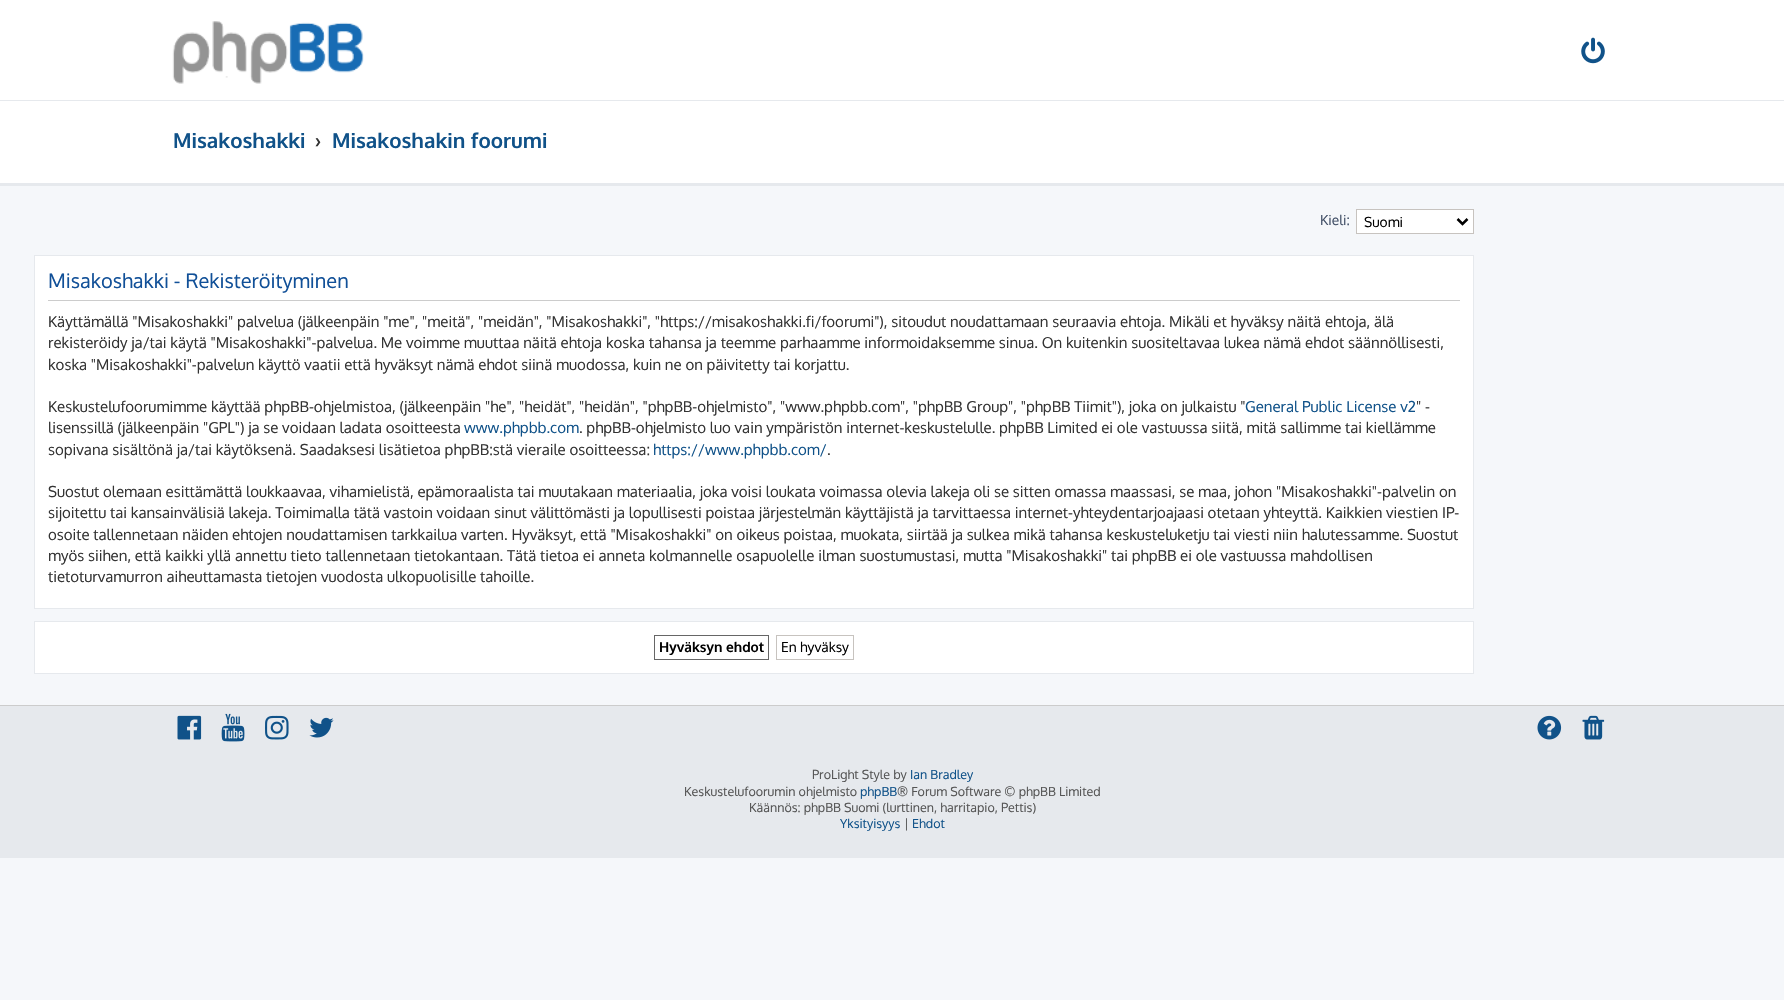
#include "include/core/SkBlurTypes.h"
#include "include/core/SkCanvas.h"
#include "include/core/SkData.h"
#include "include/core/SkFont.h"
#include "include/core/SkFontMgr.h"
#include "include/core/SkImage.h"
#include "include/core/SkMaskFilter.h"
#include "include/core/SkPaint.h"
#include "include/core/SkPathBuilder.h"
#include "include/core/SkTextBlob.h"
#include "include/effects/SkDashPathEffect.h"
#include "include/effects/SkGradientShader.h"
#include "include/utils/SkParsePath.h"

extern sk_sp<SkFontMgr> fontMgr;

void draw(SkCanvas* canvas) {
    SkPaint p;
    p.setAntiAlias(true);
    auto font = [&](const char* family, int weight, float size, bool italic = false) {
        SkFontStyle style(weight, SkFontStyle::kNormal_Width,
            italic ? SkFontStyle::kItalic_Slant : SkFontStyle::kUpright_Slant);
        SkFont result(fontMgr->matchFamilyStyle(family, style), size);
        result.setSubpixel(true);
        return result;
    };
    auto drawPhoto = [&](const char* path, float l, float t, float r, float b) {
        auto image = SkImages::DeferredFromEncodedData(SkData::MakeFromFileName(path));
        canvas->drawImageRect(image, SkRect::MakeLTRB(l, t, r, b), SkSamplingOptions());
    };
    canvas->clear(0xFFF5F7FA);
    p.setColor(0xFFFFFFFF);
    canvas->drawRect(SkRect::MakeLTRB(0, 0, 1784, 100), p);
    p.setColor(0xFFE6E9ED);
    canvas->drawRect(SkRect::MakeLTRB(0, 100, 1784, 101), p);
    drawPhoto("media/1.png", 172, 21, 364, 84);
    drawPhoto("media/2.png", 1581, 37, 1605, 64);
    p.setColor(0xFFFFFFFF);
    canvas->drawRect(SkRect::MakeLTRB(0, 101, 1784, 183), p);
    p.setColor(0xFFE6E9ED);
    canvas->drawRect(SkRect::MakeLTRB(0, 183, 1784, 186), p);
    auto font1 = font("Oxygen", 700, 20.6f);
    p.setColor(0xFF105289);
    canvas->drawString("Misakoshakki", 173, 148, font1, p);
    p.setColor(0xFF333333);
    canvas->drawString("›", 315, 148, font1, p);
    p.setColor(0xFF105289);
    canvas->drawString("Misakoshakin foorumi", 332, 148, font1, p);
    auto font2 = font("Oxygen", 400, 13.75f);
    p.setColor(0xFF425067);
    canvas->drawString("Kieli:", 1320, 225, font2, p);
    p.setColor(0xFFFFFFFF);
    canvas->drawRect(SkRect::MakeLTRB(1356.5f, 209.5f, 1473.5f, 233.5f), p);
    p.setStyle(SkPaint::kStroke_Style);
    p.setStrokeWidth(1);
    p.setColor(0xFFC7C3BF);
    canvas->drawRect(SkRect::MakeLTRB(1356.5f, 209.5f, 1473.5f, 233.5f), p);
    p.setStrokeWidth(2.5f);
    p.setColor(0xFF000000);
    canvas->drawPath(SkPathBuilder().moveTo(1457.5f, 219).lineTo(1462.5f, 224).lineTo(1467.5f, 219).detach(), p);
    p.setStyle(SkPaint::kFill_Style);
    canvas->drawString("Suomi", 1364, 227, font2, p);
    p.setColor(0xFFFFFFFF);
    canvas->drawRect(SkRect::MakeLTRB(34.5f, 255.5f, 1473.5f, 608.5f), p);
    p.setStyle(SkPaint::kStroke_Style);
    p.setStrokeWidth(1);
    p.setColor(0xFFE6E9ED);
    canvas->drawRect(SkRect::MakeLTRB(34.5f, 255.5f, 1473.5f, 608.5f), p);
    p.setStyle(SkPaint::kFill_Style);
    p.setColor(0xFFCCCCCC);
    canvas->drawRect(SkRect::MakeLTRB(48, 300, 1460, 301), p);
    auto font3 = font("Oxygen", 400, 20);
    p.setColor(0xFF115098);
    canvas->drawString("Misakoshakki - Rekisteröityminen", 48, 288, font3, p);
    auto font4 = font("Oxygen", 400, 15);
    p.setColor(0xFF333333);
    {
        const struct { const char* s; float x, y; } items[] = {
            {"Käyttämällä \"Misakoshakki\" palvelua (jälkeenpäin \"me\", \"meitä\", \"meidän\", \"Misakoshakki\", \"https://misakoshakki.fi/foorumi\"), sitoudut noudattamaan seuraavia ehtoja. Mikäli et hyväksy näitä ehtoja, älä", 48, 327},
            {"rekisteröidy ja/tai käytä \"Misakoshakki\"-palvelua. Me voimme muuttaa näitä ehtoja koska tahansa ja teemme parhaamme informoidaksemme sinua. On kuitenkin suositeltavaa lukea nämä ehdot säännöllisesti,", 48, 348},
            {"koska \"Misakoshakki\"-palvelun käyttö vaatii että hyväksyt nämä ehdot siinä muodossa, kuin ne on päivitetty tai korjattu.", 48, 370},
            {"Keskustelufoorumimme käyttää phpBB-ohjelmistoa, (jälkeenpäin \"he\", \"heidät\", \"heidän\", \"phpBB-ohjelmisto\", \"www.phpbb.com\", \"phpBB Group\", \"phpBB Tiimit\"), joka on julkaistu \"", 48, 412},
        };
        for (auto [s, x, y] : items) {
            canvas->drawString(s, x, y, font4, p);
        }
    }
    p.setColor(0xFF105289);
    canvas->drawString("General Public License v2", 1245, 412, font4, p);
    p.setColor(0xFF333333);
    canvas->drawString("\" -", 1416, 412, font4, p);
    canvas->drawString("lisenssillä (jälkeenpäin \"GPL\") ja se voidaan ladata osoitteesta", 48, 433, font4, p);
    p.setColor(0xFF105289);
    canvas->drawString("www.phpbb.com", 464, 433, font4, p);
    p.setColor(0xFF333333);
    canvas->drawString(". phpBB-ohjelmisto luo vain ympäristön internet-keskustelulle. phpBB Limited ei ole vastuussa siitä, mitä sallimme tai kiellämme", 579, 433, font4, p);
    canvas->drawString("sopivana sisältönä ja/tai käytöksenä. Saadaksesi lisätietoa phpBB:stä vieraile osoitteessa:", 48, 455, font4, p);
    p.setColor(0xFF105289);
    canvas->drawString("https://www.phpbb.com/", 653, 455, font4, p);
    p.setColor(0xFF333333);
    {
        const struct { const char* s; float x, y; } items[] = {
            {".", 827, 455},
            {"Suostut olemaan esittämättä loukkaavaa, vihamielistä, epämoraalista tai muutakaan materiaalia, joka voisi loukata voimassa olevia lakeja oli se sitten omassa maassasi, se maa, johon \"Misakoshakki\"-palvelin on", 48, 497},
            {"sijoitettu tai kansainvälisiä lakeja. Toimimalla tätä vastoin voidaan sinut välittömästi ja lopullisesti poistaa järjestelmän käyttäjistä ja tarvittaessa internet-yhteydentarjoajaasi otetaan yhteyttä. Kaikkien viestien IP-", 48, 518},
            {"osoite tallennetaan näiden ehtojen noudattamisen tarkkailua varten. Hyväksyt, että \"Misakoshakki\" on oikeus poistaa, muokata, siirtää ja sulkea mikä tahansa keskusteluketju tai viesti niin halutessamme. Suostut", 48, 540},
            {"myös siihen, että kaikki yllä annettu tieto tallennetaan tietokantaan. Tätä tietoa ei anneta kolmannelle osapuolelle ilman suostumustasi, mutta \"Misakoshakki\" tai phpBB ei ole vastuussa mahdollisen", 48, 561},
            {"tietoturvamurron aiheuttamasta tietojen vuodosta ulkopuolisille tahoille.", 48, 582},
        };
        for (auto [s, x, y] : items) {
            canvas->drawString(s, x, y, font4, p);
        }
    }
    p.setColor(0xFFFFFFFF);
    canvas->drawRect(SkRect::MakeLTRB(34.5f, 621.5f, 1473.5f, 673.5f), p);
    p.setStyle(SkPaint::kStroke_Style);
    p.setColor(0xFFE6E9ED);
    canvas->drawRect(SkRect::MakeLTRB(34.5f, 621.5f, 1473.5f, 673.5f), p);
    p.setColor(0xFF666666);
    canvas->drawRect(SkRect::MakeLTRB(654.5f, 635.5f, 768.5f, 659.5f), p);
    auto font5 = font("Oxygen", 700, 13.75f);
    p.setStyle(SkPaint::kFill_Style);
    p.setColor(0xFF000000);
    canvas->drawString("Hyväksyn ehdot", 659, 652, font5, p);
    p.setStyle(SkPaint::kStroke_Style);
    p.setColor(0xFFC7C3BF);
    canvas->drawRect(SkRect::MakeLTRB(776.5f, 635.5f, 853.5f, 659.5f), p);
    p.setStyle(SkPaint::kFill_Style);
    p.setColor(0xFF000000);
    canvas->drawString("En hyväksy", 781, 652, font2, p);
    p.setColor(0xFFE6E9ED);
    canvas->drawRect(SkRect::MakeLTRB(0, 706, 1784, 858), p);
    p.setColor(0xFFCCCCCC);
    canvas->drawRect(SkRect::MakeLTRB(0, 705, 1784, 706), p);
    drawPhoto("media/3.png", 177, 715, 202, 740);
    drawPhoto("media/4.png", 221, 713, 245, 742);
    drawPhoto("media/5.png", 265, 715, 289, 740);
    drawPhoto("media/6.png", 309, 717, 334, 738);
    drawPhoto("media/7.png", 1537, 715, 1562, 740);
    drawPhoto("media/8.png", 1582, 715, 1605, 740);
    auto font6 = font("Oxygen", 400, 12.5f);
    p.setColor(0xFF555555);
    canvas->drawString("ProLight Style by", 812, 779, font6, p);
    p.setColor(0xFF105289);
    canvas->drawString("Ian Bradley", 910, 779, font6, p);
    p.setColor(0xFF555555);
    canvas->drawString("Keskustelufoorumin ohjelmisto", 684, 796, font6, p);
    p.setColor(0xFF105289);
    canvas->drawString("phpBB", 860, 796, font6, p);
    p.setColor(0xFF555555);
    canvas->drawString("® Forum Software © phpBB Limited", 897, 796, font6, p);
    canvas->drawString("Käännös: phpBB Suomi (lurttinen, harritapio, Pettis)", 749, 812, font6, p);
    p.setColor(0xFF105289);
    canvas->drawString("Yksityisyys", 840, 828, font6, p);
    p.setColor(0xFF555555);
    canvas->drawString("|", 904, 828, font6, p);
    p.setColor(0xFF105289);
    canvas->drawString("Ehdot", 912, 828, font6, p);
}
